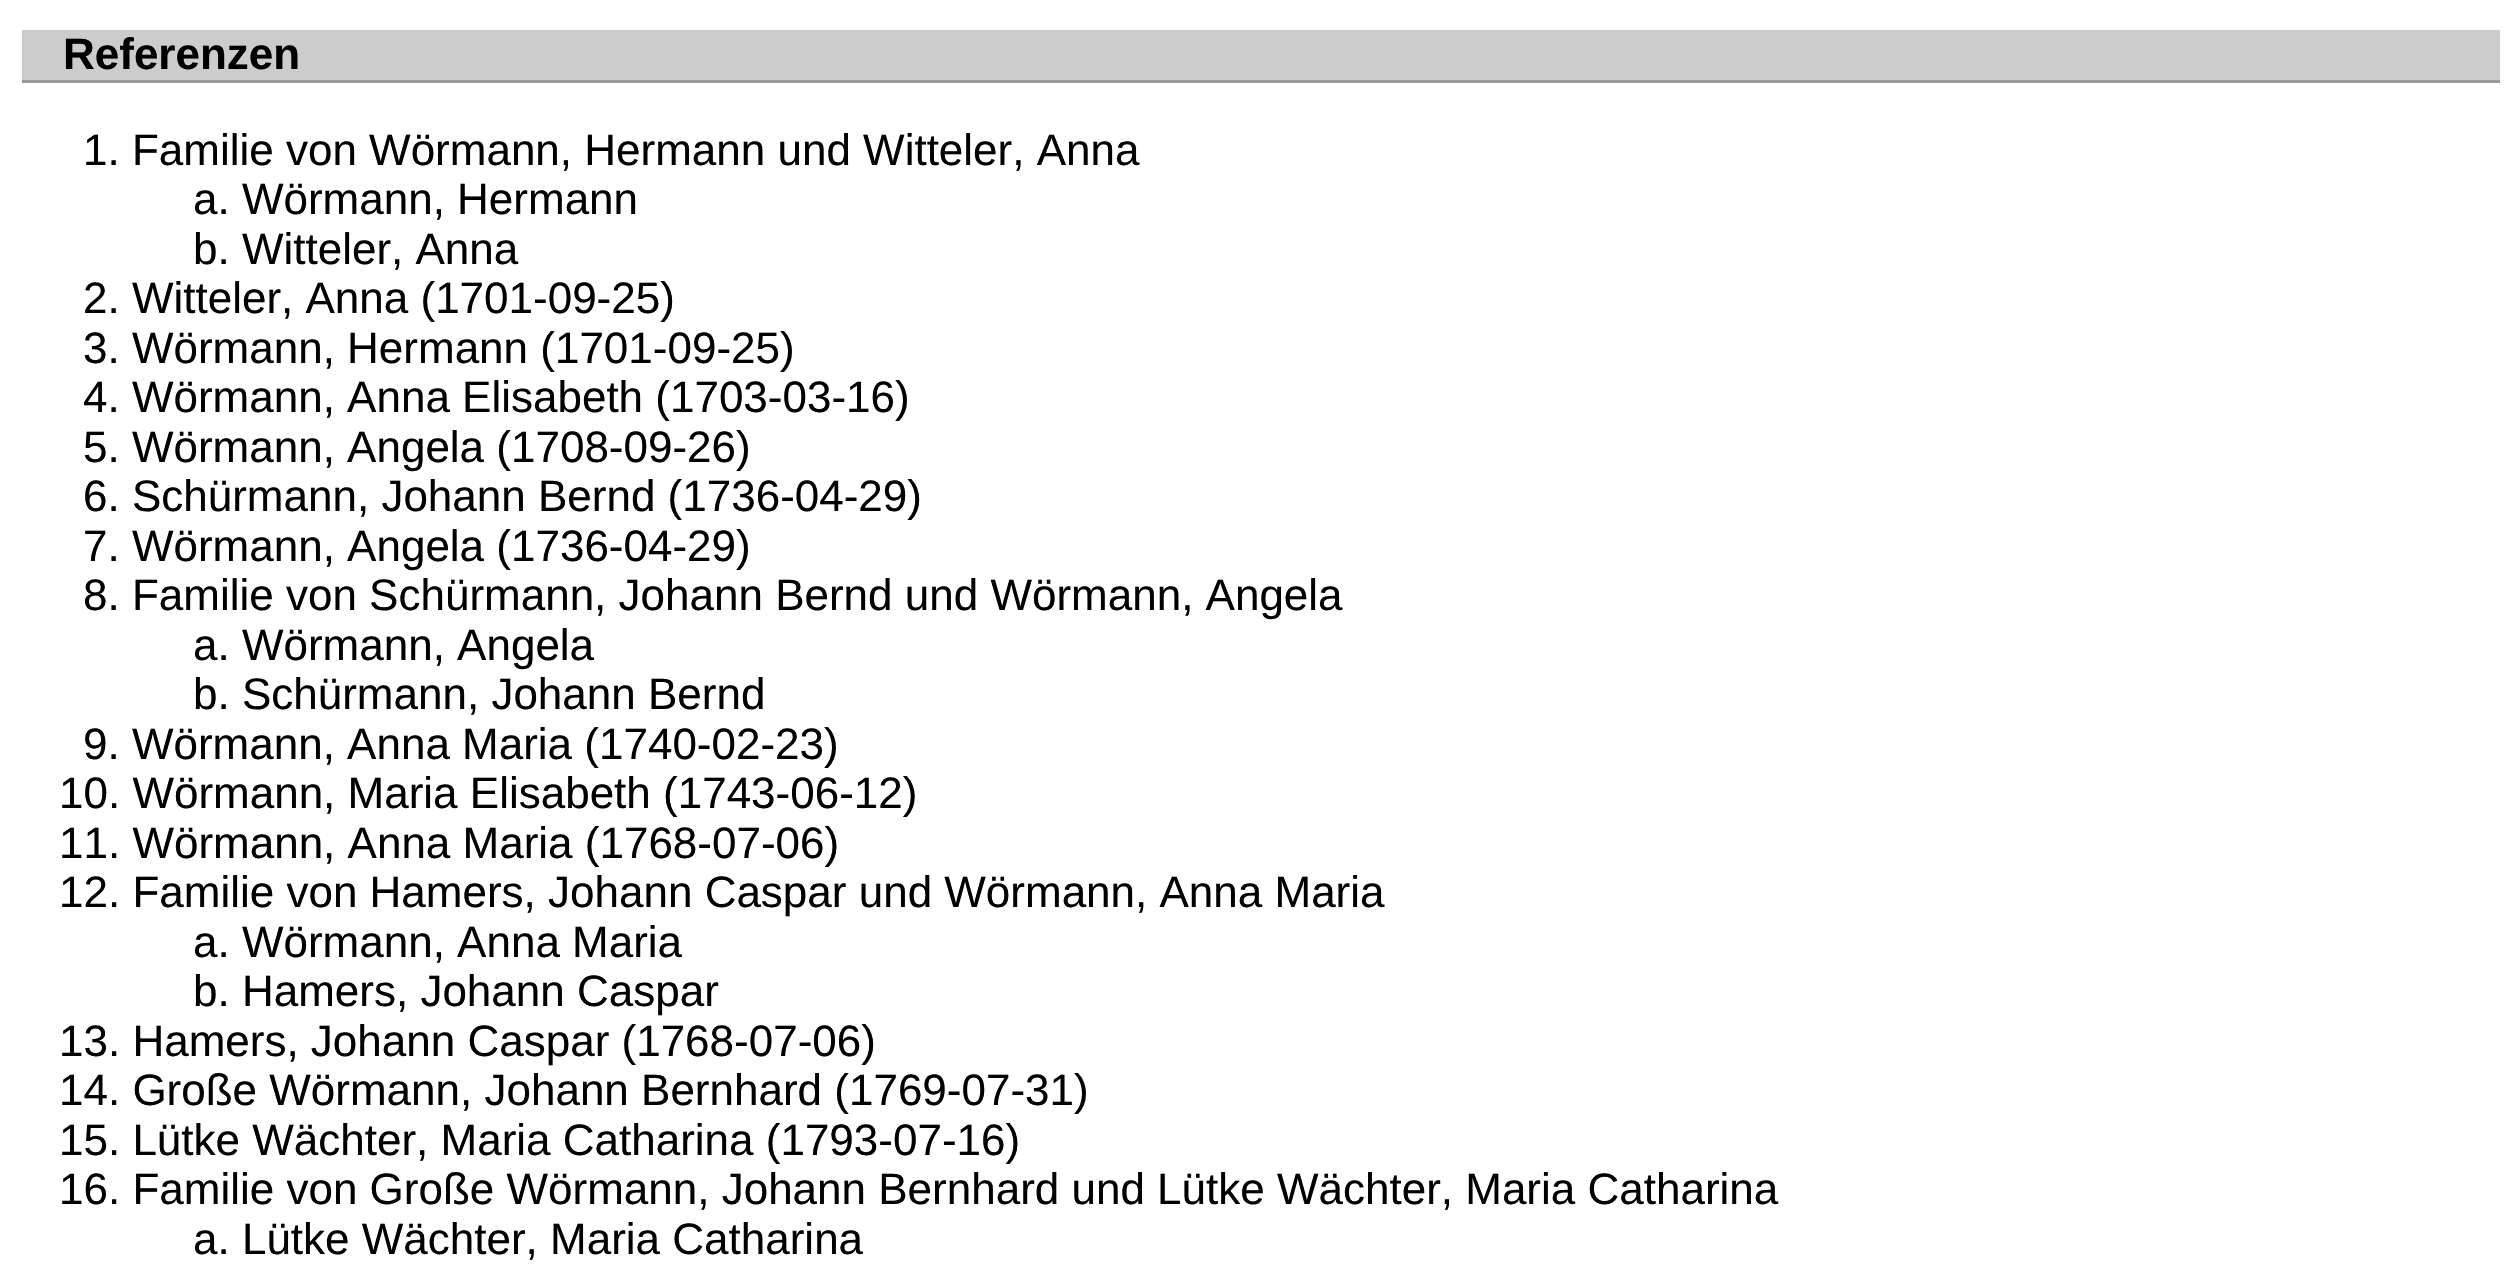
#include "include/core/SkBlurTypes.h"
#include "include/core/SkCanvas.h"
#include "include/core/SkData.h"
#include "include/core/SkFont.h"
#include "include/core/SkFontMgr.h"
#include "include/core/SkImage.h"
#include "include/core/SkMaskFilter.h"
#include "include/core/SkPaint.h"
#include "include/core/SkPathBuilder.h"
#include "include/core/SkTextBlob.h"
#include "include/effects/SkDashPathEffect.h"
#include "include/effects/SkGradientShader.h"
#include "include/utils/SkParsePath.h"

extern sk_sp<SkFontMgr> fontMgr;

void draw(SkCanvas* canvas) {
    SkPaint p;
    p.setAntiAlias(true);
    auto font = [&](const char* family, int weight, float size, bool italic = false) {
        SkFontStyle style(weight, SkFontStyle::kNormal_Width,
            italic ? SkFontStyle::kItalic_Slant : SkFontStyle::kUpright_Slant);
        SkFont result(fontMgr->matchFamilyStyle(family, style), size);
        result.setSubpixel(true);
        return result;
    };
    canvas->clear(0xFFFFFFFF);
    p.setColor(0xFFCCCCCC);
    canvas->drawRect(SkRect::MakeLTRB(22, 30, 2500, 80), p);
    p.setColor(0xFF999999);
    canvas->drawRect(SkRect::MakeLTRB(22, 80, 2500, 83), p);
    auto font1 = font("Liberation Sans", 700, 44);
    p.setColor(0xFF000000);
    canvas->drawString("Referenzen", 63, 69, font1, p);
    auto font2 = font("Liberation Sans", 400, 44);
    {
        const struct { const char* s; float x, y; } items[] = {
            {"1. Familie von Wörmann, Hermann und Witteler, Anna", 83, 165},
            {"a. Wörmann, Hermann", 193, 214},
            {"b. Witteler, Anna", 193, 264},
            {"2. Witteler, Anna (1701-09-25)", 83, 313},
            {"3. Wörmann, Hermann (1701-09-25)", 83, 363},
            {"4. Wörmann, Anna Elisabeth (1703-03-16)", 83, 412},
            {"5. Wörmann, Angela (1708-09-26)", 83, 462},
            {"6. Schürmann, Johann Bernd (1736-04-29)", 83, 511},
            {"7. Wörmann, Angela (1736-04-29)", 83, 561},
            {"8. Familie von Schürmann, Johann Bernd und Wörmann, Angela", 83, 610},
            {"a. Wörmann, Angela", 193, 660},
            {"b. Schürmann, Johann Bernd", 193, 709},
            {"9. Wörmann, Anna Maria (1740-02-23)", 83, 759},
            {"10. Wörmann, Maria Elisabeth (1743-06-12)", 59, 808},
            {"11. Wörmann, Anna Maria (1768-07-06)", 59, 858},
            {"12. Familie von Hamers, Johann Caspar und Wörmann, Anna Maria", 59, 907},
            {"a. Wörmann, Anna Maria", 193, 957},
            {"b. Hamers, Johann Caspar", 193, 1006},
            {"13. Hamers, Johann Caspar (1768-07-06)", 59, 1056},
            {"14. Große Wörmann, Johann Bernhard (1769-07-31)", 59, 1105},
            {"15. Lütke Wächter, Maria Catharina (1793-07-16)", 59, 1155},
            {"16. Familie von Große Wörmann, Johann Bernhard und Lütke Wächter, Maria Catharina", 59, 1204},
            {"a. Lütke Wächter, Maria Catharina", 193, 1254},
        };
        for (auto [s, x, y] : items) {
            canvas->drawString(s, x, y, font2, p);
        }
    }
}
